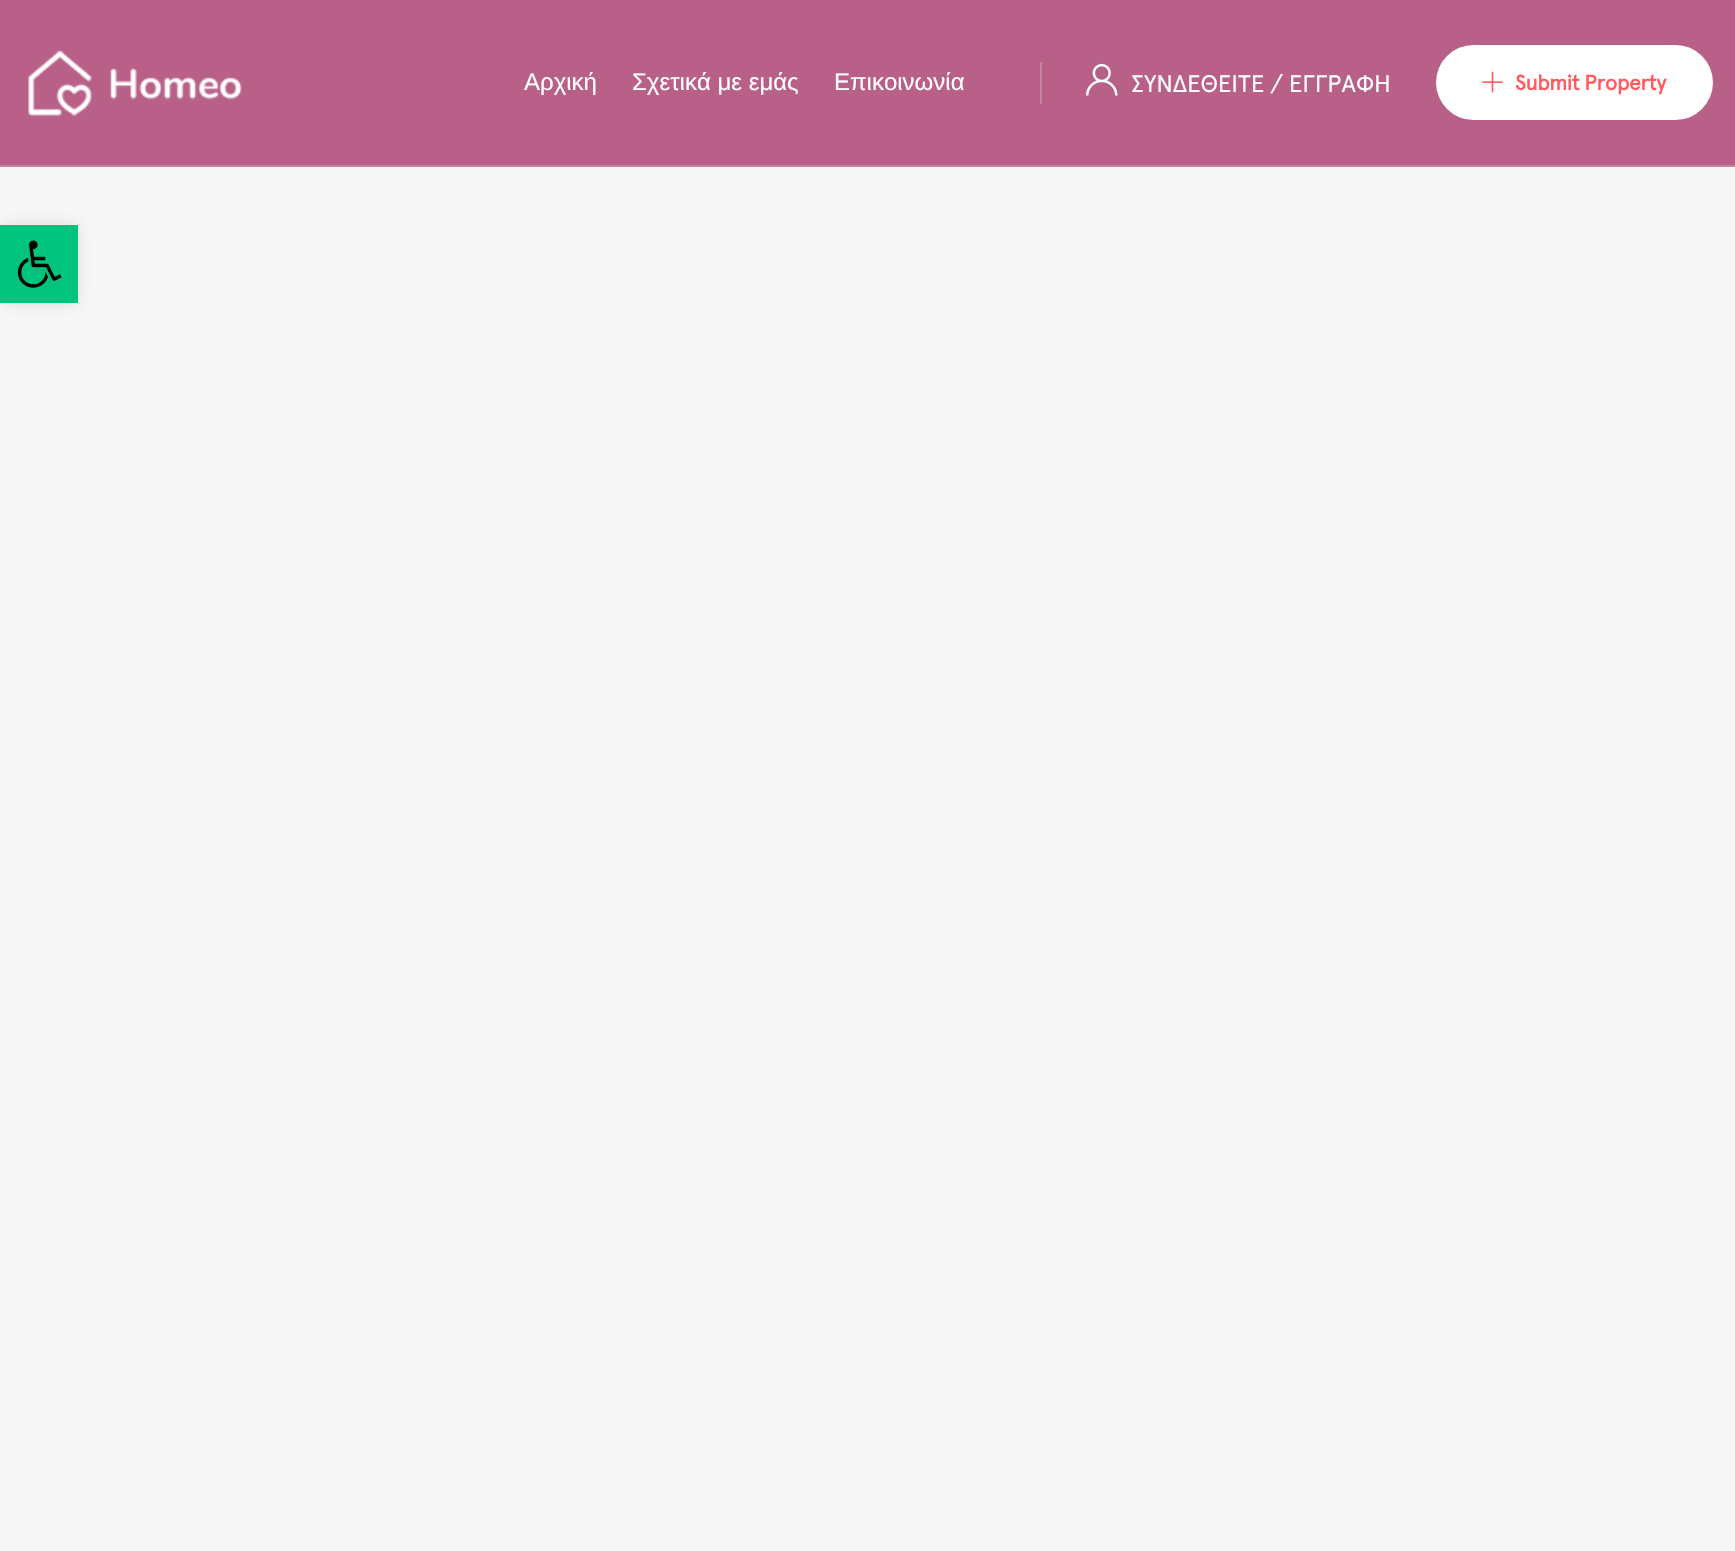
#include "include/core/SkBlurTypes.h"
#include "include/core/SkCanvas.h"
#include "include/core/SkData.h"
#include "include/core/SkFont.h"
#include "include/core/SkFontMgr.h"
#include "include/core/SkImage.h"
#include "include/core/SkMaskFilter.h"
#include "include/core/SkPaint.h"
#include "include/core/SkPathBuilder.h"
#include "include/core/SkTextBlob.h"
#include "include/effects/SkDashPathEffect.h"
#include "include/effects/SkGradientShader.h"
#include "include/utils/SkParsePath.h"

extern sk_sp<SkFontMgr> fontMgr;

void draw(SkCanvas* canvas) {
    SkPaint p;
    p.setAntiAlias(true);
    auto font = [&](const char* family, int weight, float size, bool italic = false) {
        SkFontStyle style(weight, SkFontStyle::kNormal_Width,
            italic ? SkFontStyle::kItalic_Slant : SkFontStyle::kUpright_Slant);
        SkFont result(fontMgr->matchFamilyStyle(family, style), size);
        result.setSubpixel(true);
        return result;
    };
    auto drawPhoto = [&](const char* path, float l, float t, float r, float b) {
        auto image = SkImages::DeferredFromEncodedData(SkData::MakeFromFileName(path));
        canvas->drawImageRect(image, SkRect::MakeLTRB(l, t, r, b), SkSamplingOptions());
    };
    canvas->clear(0xFFF7F7F7);
    p.setColor(0xFFB86088);
    canvas->drawRect(SkRect::MakeLTRB(0, 0, 1735, 165), p);
    p.setColor(0xFFC885A3);
    canvas->drawRect(SkRect::MakeLTRB(0, 165, 1735, 167), p);
    drawPhoto("media/1.png", 28, 50, 242, 116);
    auto font1 = font("Liberation Sans", 400, 24);
    p.setColor(0xFFFFFFFF);
    {
        const struct { const char* s; float x, y; } items[] = {
            {"Αρχική", 524, 90},
            {"Σχετικά με εμάς", 632, 90},
            {"Επικοινωνία", 834, 90},
        };
        for (auto [s, x, y] : items) {
            canvas->drawString(s, x, y, font1, p);
        }
    }
    p.setColor(0xFFC885A3);
    canvas->drawRect(SkRect::MakeLTRB(1040, 62, 1042, 104), p);
    drawPhoto("media/2.png", 1086, 63, 1118, 96);
    auto font2 = font("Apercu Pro", 400, 24);
    p.setColor(0xFFFFFFFF);
    canvas->drawString("ΣΥΝΔΕΘΕΙΤΕ / ΕΓΓΡΑΦΗ", 1131, 92, font2, p);
    canvas->drawRoundRect(SkRect::MakeLTRB(1436, 45, 1713, 120), 37.5f, 37.5f, p);
    drawPhoto("media/3.png", 1482, 71, 1503, 93);
    auto font3 = font("Apercu Pro", 700, 21);
    p.setColor(0xFFFF5A5F);
    canvas->drawString("Submit Property", 1515, 90, font3, p);
    p.setColor(0x1A000000);
    p.setMaskFilter(SkMaskFilter::MakeBlur(kNormal_SkBlurStyle, 7.5f));
    canvas->drawRect(SkRect::MakeLTRB(0, 225, 78, 303), p);
    p.setMaskFilter(nullptr);
    p.setColor(0xFF00C47E);
    canvas->drawRect(SkRect::MakeLTRB(0, 225, 78, 303), p);
    drawPhoto("media/4.png", 17, 240, 62, 288);
}
